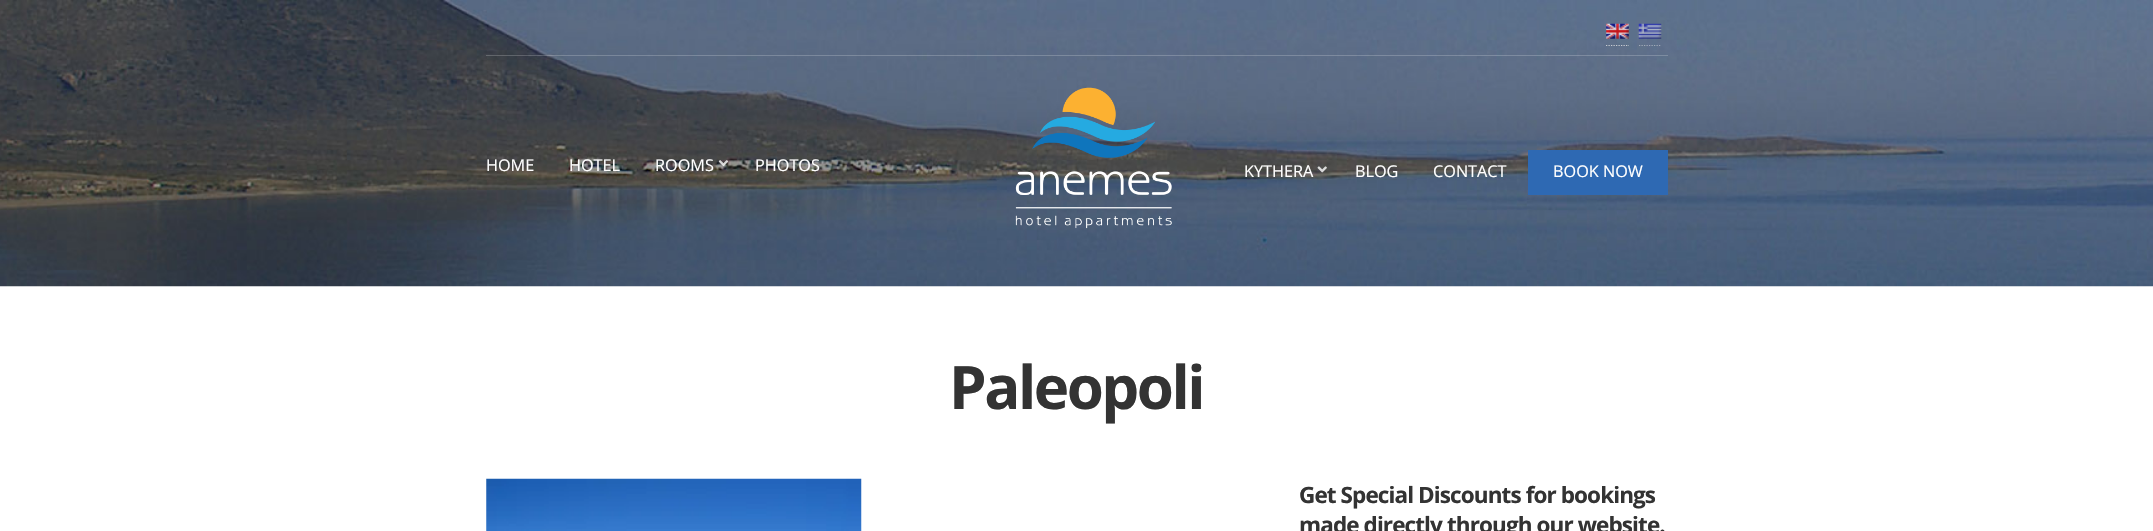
#include "include/core/SkBlurTypes.h"
#include "include/core/SkCanvas.h"
#include "include/core/SkData.h"
#include "include/core/SkFont.h"
#include "include/core/SkFontMgr.h"
#include "include/core/SkImage.h"
#include "include/core/SkMaskFilter.h"
#include "include/core/SkPaint.h"
#include "include/core/SkPathBuilder.h"
#include "include/core/SkTextBlob.h"
#include "include/effects/SkDashPathEffect.h"
#include "include/effects/SkGradientShader.h"
#include "include/utils/SkParsePath.h"

extern sk_sp<SkFontMgr> fontMgr;

void draw(SkCanvas* canvas) {
    SkPaint p;
    p.setAntiAlias(true);
    auto font = [&](const char* family, int weight, float size, bool italic = false) {
        SkFontStyle style(weight, SkFontStyle::kNormal_Width,
            italic ? SkFontStyle::kItalic_Slant : SkFontStyle::kUpright_Slant);
        SkFont result(fontMgr->matchFamilyStyle(family, style), size);
        result.setSubpixel(true);
        return result;
    };
    auto drawTracked = [&](const char* s, float x, float y, const SkFont& font, const SkPaint& ink, float letter, float word) {
        std::vector<SkGlyphID> glyphs(font.countText(s, strlen(s), SkTextEncoding::kUTF8));
        std::vector<float> xs(glyphs.size());
        font.textToGlyphs(s, strlen(s), SkTextEncoding::kUTF8, glyphs);
        font.getXPos(glyphs, xs, x);
        float extra = 0;
        for (size_t i = 0; i < glyphs.size(); i++) {
            xs[i] += extra;
            extra += letter + word * (glyphs[i] == font.unicharToGlyph(' '));
        }
        canvas->drawTextBlob(SkTextBlob::MakeFromPosHGlyphs(glyphs, xs, y, font), 0, 0, ink);
    };
    auto drawPhoto = [&](const char* path, float l, float t, float r, float b) {
        auto image = SkImages::DeferredFromEncodedData(SkData::MakeFromFileName(path));
        canvas->drawImageRect(image, SkRect::MakeLTRB(l, t, r, b), SkSamplingOptions());
    };
    canvas->clear(0xFFFFFFFF);
    drawPhoto("media/1.png", 0, 0, 2153, 287);
    drawPhoto("media/2.png", 1606, 23, 1629, 39);
    drawPhoto("media/3.png", 1638, 23, 1662, 39);
    p.setStyle(SkPaint::kStroke_Style);
    p.setStrokeWidth(1.2f);
    p.setColor(0xCCE5E5E5);
    p.setPathEffect(SkDashPathEffect::Make({{1.25f, 1.25f}}, 0));
    canvas->drawPath(SkPathBuilder().moveTo(1606, 45.5f).lineTo(1629, 45.5f).detach(), p);
    p.setPathEffect(nullptr);
    p.setColor(0x80E5E5E5);
    p.setPathEffect(SkDashPathEffect::Make({{1.25f, 1.25f}}, 0));
    canvas->drawPath(SkPathBuilder().moveTo(1639, 45.5f).lineTo(1661, 45.5f).detach(), p);
    p.setPathEffect(nullptr);
    p.setStyle(SkPaint::kFill_Style);
    p.setColor(0x33FFFFFF);
    canvas->drawRect(SkRect::MakeLTRB(486, 55, 1668, 56), p);
    auto font1 = font("Open Sans", 400, 16.25f);
    p.setColor(0xFFFFFFFF);
    {
        const struct { const char* s; float x, y; } items[] = {
            {"HOME", 486, 171},
            {"HOTEL", 569, 171},
            {"ROOMS", 655, 171},
        };
        for (auto [s, x, y] : items) {
            canvas->drawString(s, x, y, font1, p);
        }
    }
    drawPhoto("media/4.png", 718, 160, 729, 167);
    canvas->drawString("PHOTOS", 755, 171, font1, p);
    drawPhoto("media/5.png", 1015, 87, 1172, 229);
    canvas->drawString("KYTHERA", 1244, 177, font1, p);
    drawPhoto("media/6.png", 1317, 166, 1327, 173);
    canvas->drawString("BLOG", 1355, 177, font1, p);
    canvas->drawString("CONTACT", 1433, 177, font1, p);
    p.setColor(0xFF2E69B3);
    canvas->drawRect(SkRect::MakeLTRB(1528, 150, 1668, 195), p);
    p.setColor(0xFFFFFFFF);
    canvas->drawString("BOOK NOW", 1553, 177, font1, p);
    auto font2 = font("Open Sans", 700, 60);
    p.setColor(0xFF333333);
    drawTracked("Paleopoli", 949, 409, font2, p, -2.5f, 0);
    drawPhoto("media/7.png", 486, 478, 862, 531);
    auto font3 = font("Open Sans", 700, 22.5f);
    drawTracked("Get Special Discounts for bookings", 1299, 503, font3, p, -0.9f, 0);
    drawTracked("made directly through our website.", 1299, 533, font3, p, -0.9f, 0);
}
